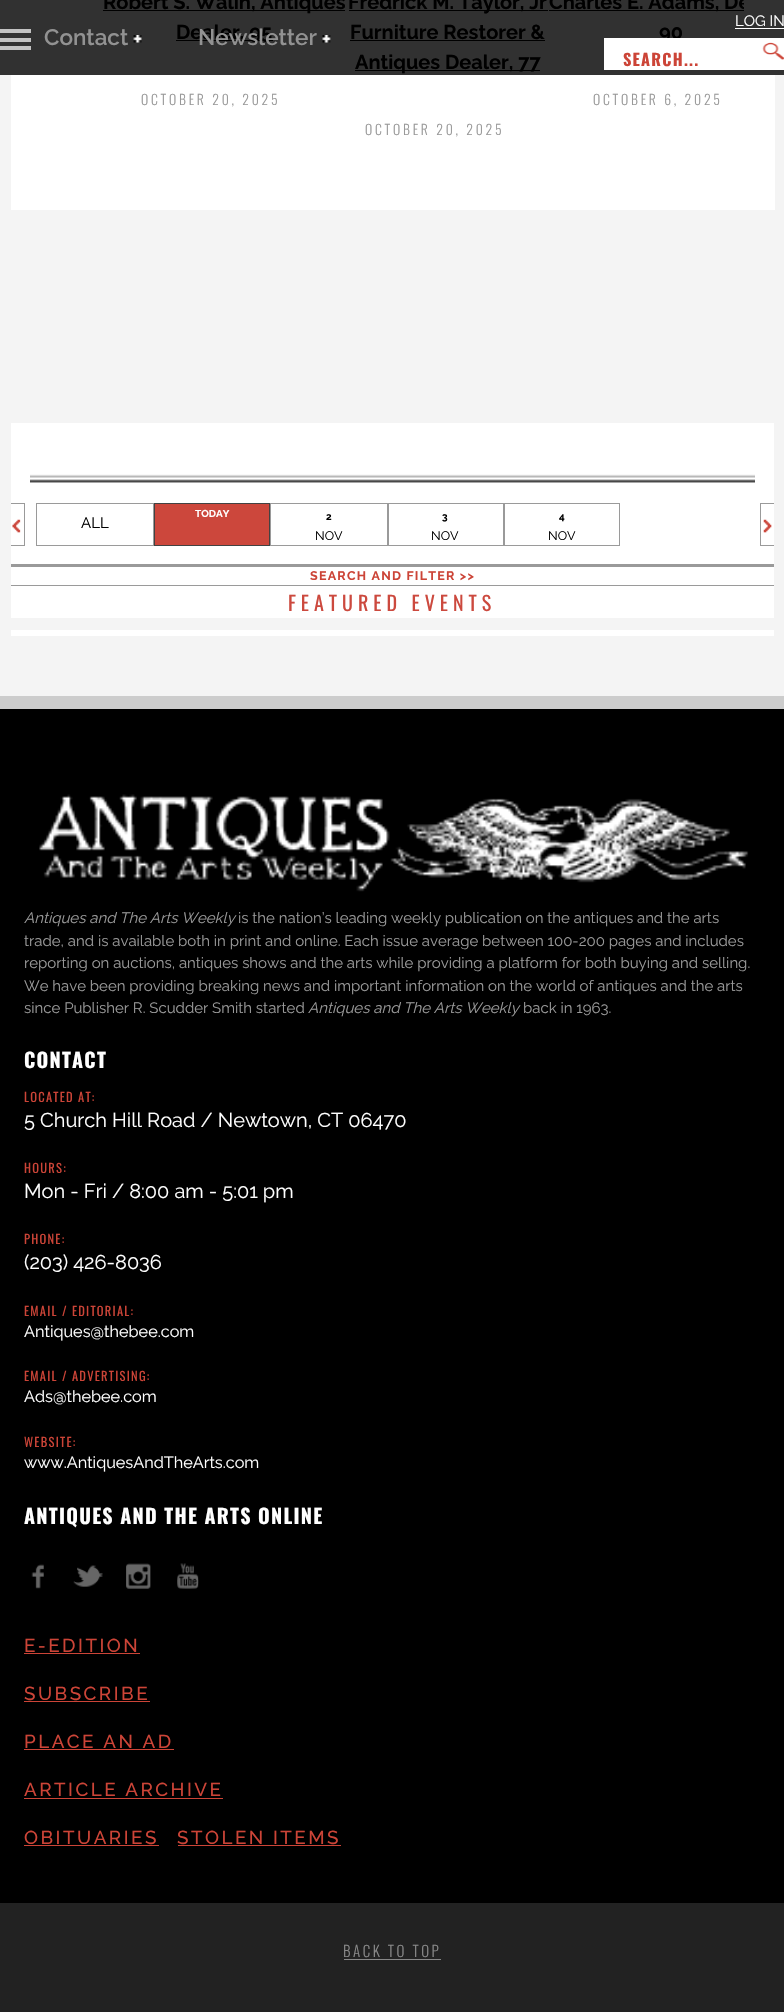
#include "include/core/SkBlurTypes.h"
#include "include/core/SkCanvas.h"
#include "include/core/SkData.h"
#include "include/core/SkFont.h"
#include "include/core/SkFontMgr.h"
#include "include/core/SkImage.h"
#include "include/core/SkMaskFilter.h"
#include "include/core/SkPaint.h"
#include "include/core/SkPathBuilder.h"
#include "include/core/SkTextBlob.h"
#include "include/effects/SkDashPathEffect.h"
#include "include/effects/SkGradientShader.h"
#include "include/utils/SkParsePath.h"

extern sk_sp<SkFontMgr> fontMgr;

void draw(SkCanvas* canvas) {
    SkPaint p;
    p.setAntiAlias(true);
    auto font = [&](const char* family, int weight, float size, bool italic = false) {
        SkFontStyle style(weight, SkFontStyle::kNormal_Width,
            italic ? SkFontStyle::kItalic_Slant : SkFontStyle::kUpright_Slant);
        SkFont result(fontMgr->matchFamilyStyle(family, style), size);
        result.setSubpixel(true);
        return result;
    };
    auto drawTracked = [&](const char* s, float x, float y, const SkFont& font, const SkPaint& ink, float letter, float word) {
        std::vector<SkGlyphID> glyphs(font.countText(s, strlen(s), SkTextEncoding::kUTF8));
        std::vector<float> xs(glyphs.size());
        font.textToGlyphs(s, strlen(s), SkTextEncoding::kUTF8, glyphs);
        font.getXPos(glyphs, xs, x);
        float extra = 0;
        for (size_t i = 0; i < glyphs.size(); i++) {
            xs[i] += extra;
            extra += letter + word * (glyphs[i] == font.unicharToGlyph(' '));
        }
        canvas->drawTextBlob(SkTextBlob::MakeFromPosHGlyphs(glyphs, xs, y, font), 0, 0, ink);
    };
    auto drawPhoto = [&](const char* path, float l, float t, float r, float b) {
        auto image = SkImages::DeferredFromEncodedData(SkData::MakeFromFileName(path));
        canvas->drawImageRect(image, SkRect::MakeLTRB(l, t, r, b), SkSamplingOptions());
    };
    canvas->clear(0xFFF4F4F4);
    {
        const struct { float l, t, r, b; SkColor color; } items[] = {
            {0, 0, 784, 75, 0xFF313131},
            {11, 75, 775, 210, 0xFFFFFFFF},
            {103, 10, 345, 11, 0xFF000000},
        };
        for (auto [l, t, r, b, color] : items) {
            p.setColor(color);
            canvas->drawRect(SkRect::MakeLTRB(l, t, r, b), p);
        }
    }
    auto font1 = font("Raleway", 700, 20);
    canvas->drawString("Robert S. Walin, Antiques", 103, 9, font1, p);
    canvas->drawRect(SkRect::MakeLTRB(176, 40, 273, 41), p);
    canvas->drawString("Dealer, 95", 176, 39, font1, p);
    auto font2 = font("Oswald", 300, 13.75f);
    p.setColor(0xFF999999);
    drawTracked("OCTOBER 20, 2025", 141, 105, font2, p, 2.75f, 0);
    p.setColor(0xFF000000);
    canvas->drawRect(SkRect::MakeLTRB(349, 10, 548, 11), p);
    canvas->drawString("Fredrick M. Taylor, Jr", 348, 9, font1, p);
    canvas->drawString("Furniture Restorer &", 350, 39, font1, p);
    canvas->drawRect(SkRect::MakeLTRB(350, 40, 545, 41), p);
    canvas->drawRect(SkRect::MakeLTRB(355, 70, 540, 71), p);
    canvas->drawString("Antiques Dealer, 77", 355, 69, font1, p);
    p.setColor(0xFF999999);
    drawTracked("OCTOBER 20, 2025", 365, 135, font2, p, 2.75f, 0);
    p.setColor(0xFF000000);
    canvas->drawRect(SkRect::MakeLTRB(549, 10, 744, 11), p);
    canvas->save();
    canvas->clipRect(SkRect::MakeLTRB(49, 0, 744, 179));
    canvas->drawString("Charles E. Adams, De", 549, 9, font1, p);
    canvas->restore();
    canvas->drawString("90", 659, 39, font1, p);
    p.setColor(0xFF999999);
    drawTracked("OCTOBER 6, 2025", 593, 105, font2, p, 2.75f, 0);
    p.setColor(0xFFFFFFFF);
    canvas->drawRect(SkRect::MakeLTRB(11, 423, 774, 618), p);
    drawPhoto("media/1.png", 30, 474, 755, 483);
    drawPhoto("media/2.png", 12, 519, 21, 533);
    {
        const struct { float l, t, r, b; SkColor color; } items[] = {
            {11, 503, 25, 504, 0xFF9A9A9A},
            {24, 503, 25, 546, 0xFF9A9A9A},
            {11, 545, 25, 546, 0xFF9A9A9A},
        };
        for (auto [l, t, r, b, color] : items) {
            p.setColor(color);
            canvas->drawRect(SkRect::MakeLTRB(l, t, r, b), p);
        }
    }
    p.setStyle(SkPaint::kStroke_Style);
    p.setStrokeWidth(1);
    canvas->drawRect(SkRect::MakeLTRB(36.5f, 503.5f, 153.5f, 545.5f), p);
    auto font3 = font("Raleway", 400, 15);
    p.setStyle(SkPaint::kFill_Style);
    p.setColor(0xFF000000);
    canvas->drawString("ALL", 81, 528, font3, p);
    p.setColor(0xFFCC473C);
    canvas->drawRect(SkRect::MakeLTRB(154.5f, 503.5f, 269.5f, 545.5f), p);
    p.setStyle(SkPaint::kStroke_Style);
    p.setColor(0xFF424242);
    canvas->drawRect(SkRect::MakeLTRB(154.5f, 503.5f, 269.5f, 545.5f), p);
    auto font4 = font("Raleway", 700, 10);
    p.setStyle(SkPaint::kFill_Style);
    p.setColor(0xFFFFFFFF);
    canvas->drawString("TODAY", 195, 517, font4, p);
    p.setStyle(SkPaint::kStroke_Style);
    p.setColor(0xFF9A9A9A);
    canvas->drawRect(SkRect::MakeLTRB(270.5f, 503.5f, 387.5f, 545.5f), p);
    p.setStyle(SkPaint::kFill_Style);
    p.setColor(0xFF000000);
    canvas->drawString("2", 326, 520, font4, p);
    auto font5 = font("Raleway", 400, 12.5f);
    canvas->drawString("NOV", 315, 540, font5, p);
    p.setStyle(SkPaint::kStroke_Style);
    p.setColor(0xFF9A9A9A);
    canvas->drawRect(SkRect::MakeLTRB(388.5f, 503.5f, 503.5f, 545.5f), p);
    p.setStyle(SkPaint::kFill_Style);
    p.setColor(0xFF000000);
    canvas->drawString("3", 442, 520, font4, p);
    canvas->drawString("NOV", 431, 540, font5, p);
    p.setStyle(SkPaint::kStroke_Style);
    p.setColor(0xFF9A9A9A);
    canvas->drawRect(SkRect::MakeLTRB(504.5f, 503.5f, 619.5f, 545.5f), p);
    p.setStyle(SkPaint::kFill_Style);
    p.setColor(0xFF000000);
    canvas->drawString("4", 559, 520, font4, p);
    canvas->drawString("NOV", 548, 540, font5, p);
    drawPhoto("media/3.png", 763, 519, 772, 533);
    {
        const struct { float l, t, r, b; SkColor color; } items[] = {
            {760, 503, 774, 504, 0xFF9A9A9A},
            {760, 545, 774, 546, 0xFF9A9A9A},
            {760, 503, 761, 546, 0xFF9A9A9A},
            {11, 564, 774, 567, 0xFF9A9A9A},
            {11, 585, 774, 586, 0xFF9A9A9A},
        };
        for (auto [l, t, r, b, color] : items) {
            p.setColor(color);
            canvas->drawRect(SkRect::MakeLTRB(l, t, r, b), p);
        }
    }
    auto font6 = font("Raleway", 700, 12.5f);
    p.setColor(0xFFCC4437);
    drawTracked("SEARCH AND FILTER >>", 310, 580, font6, p, 1.25f, 0);
    auto font7 = font("Oswald", 400, 20);
    p.setColor(0xFFCC493E);
    drawTracked("FEATURED EVENTS", 288, 611, font7, p, 5, 0);
    p.setColor(0xFFFFFFFF);
    canvas->drawRect(SkRect::MakeLTRB(11, 630, 774, 636), p);
    canvas->drawString("LOG IN", 735, 26, font3, p);
    {
        const struct { float l, t, r, b; SkColor color; } items[] = {
            {735, 28, 784, 29, 0xFFFFFFFF},
            {0, 29, 31, 33, 0xFFC2C2C2},
            {0, 38, 31, 42, 0xFFC2C2C2},
            {0, 46, 31, 50, 0xFFC2C2C2},
        };
        for (auto [l, t, r, b, color] : items) {
            p.setColor(color);
            canvas->drawRect(SkRect::MakeLTRB(l, t, r, b), p);
        }
    }
    auto font8 = font("Raleway", 600, 22.5f);
    p.setColor(0xFF929292);
    canvas->drawString("Contact", 44, 45, font8, p);
    drawPhoto("media/4.png", 133, 35, 142, 43);
    canvas->drawString("Newsletter", 198, 45, font8, p);
    drawPhoto("media/5.png", 322, 35, 331, 43);
    p.setColor(0xFFFFFFFF);
    canvas->drawRect(SkRect::MakeLTRB(604, 38, 784, 70), p);
    auto font9 = font("Oswald", 700, 16.25f);
    p.setColor(0xFFCC4437);
    drawTracked("SEARCH...", 623, 66, font9, p, 1.25f, 0);
    drawPhoto("media/6.png", 762, 42, 784, 60);
    p.setColor(0xFF000000);
    canvas->drawRect(SkRect::MakeLTRB(0, 709, 784, 1903), p);
    p.setColor(0xFFCCCCCC);
    canvas->drawRect(SkRect::MakeLTRB(0, 696, 784, 709), p);
    drawPhoto("media/7.png", 39, 794, 749, 892);
    auto font10 = font("Raleway", 400, 15, true);
    p.setColor(0xFF999999);
    canvas->drawString("Antiques and The Arts Weekly", 24, 923, font10, p);
    {
        const struct { const char* s; float x, y; } items[] = {
            {"is the nation’s leading weekly publication on the antiques and the arts", 238, 923},
            {"trade, and is available both in print and online. Each issue average between 100-200 pages and includes", 24, 946},
            {"reporting on auctions, antiques shows and the arts while providing a platform for both buying and selling.", 24, 968},
            {"We have been providing breaking news and important information on the world of antiques and the arts", 24, 991},
            {"since Publisher R. Scudder Smith started", 24, 1013},
        };
        for (auto [s, x, y] : items) {
            canvas->drawString(s, x, y, font3, p);
        }
    }
    canvas->drawString("Antiques and The Arts Weekly", 308, 1013, font10, p);
    canvas->drawString("back in 1963.", 523, 1013, font3, p);
    auto font11 = font("Oswald", 700, 20);
    p.setColor(0xFFFFFFFF);
    drawTracked("CONTACT", 24, 1068, font11, p, 1.25f, 0);
    auto font12 = font("Oswald", 400, 12.5f);
    p.setColor(0xFFCC4437);
    drawTracked("LOCATED AT:", 24, 1102, font12, p, 1.25f, 0);
    auto font13 = font("Raleway", 400, 20);
    p.setColor(0xFFFFFFFF);
    canvas->drawString("5 Church Hill Road / Newtown, CT 06470", 24, 1127, font13, p);
    p.setColor(0xFFCC4437);
    drawTracked("HOURS:", 24, 1173, font12, p, 1.25f, 0);
    p.setColor(0xFFFFFFFF);
    canvas->drawString("Mon - Fri / 8:00 am - 5:01 pm", 24, 1198, font13, p);
    p.setColor(0xFFCC4437);
    drawTracked("PHONE:", 24, 1244, font12, p, 1.25f, 0);
    p.setColor(0xFFFFFFFF);
    canvas->drawString("(203) 426-8036", 24, 1269, font13, p);
    p.setColor(0xFFCC4437);
    drawTracked("EMAIL / EDITORIAL:", 24, 1316, font12, p, 1.25f, 0);
    auto font14 = font("Raleway", 400, 16.25f);
    p.setColor(0xFFFFFFFF);
    canvas->drawString("Antiques@thebee.com", 24, 1337, font14, p);
    p.setColor(0xFFCC4437);
    drawTracked("EMAIL / ADVERTISING:", 24, 1381, font12, p, 1.25f, 0);
    p.setColor(0xFFFFFFFF);
    canvas->drawString("Ads@thebee.com", 24, 1402, font14, p);
    p.setColor(0xFFCC4437);
    drawTracked("WEBSITE:", 24, 1447, font12, p, 1.25f, 0);
    p.setColor(0xFFFFFFFF);
    canvas->drawString("www.AntiquesAndTheArts.com", 24, 1468, font14, p);
    drawTracked("ANTIQUES AND THE ARTS ONLINE", 24, 1524, font11, p, 1.25f, 0);
    drawPhoto("media/8.png", 31, 1564, 44, 1589);
    drawPhoto("media/9.png", 73, 1565, 103, 1587);
    drawPhoto("media/10.png", 126, 1563, 151, 1589);
    drawPhoto("media/11.png", 177, 1563, 199, 1589);
    auto font15 = font("Raleway", 500, 18.75f);
    p.setColor(0xFFCC4437);
    drawTracked("E-EDITION", 24, 1652, font15, p, 2.5f, 0);
    canvas->drawRect(SkRect::MakeLTRB(24, 1653, 140, 1654), p);
    drawTracked("SUBSCRIBE", 24, 1700, font15, p, 2.5f, 0);
    canvas->drawRect(SkRect::MakeLTRB(24, 1701, 150, 1702), p);
    drawTracked("PLACE AN AD", 24, 1748, font15, p, 2.5f, 0);
    canvas->drawRect(SkRect::MakeLTRB(24, 1749, 174, 1750), p);
    drawTracked("ARTICLE ARCHIVE", 24, 1796, font15, p, 2.5f, 0);
    canvas->drawRect(SkRect::MakeLTRB(24, 1798, 223, 1799), p);
    drawTracked("OBITUARIES", 24, 1844, font15, p, 2.5f, 0);
    canvas->drawRect(SkRect::MakeLTRB(24, 1845, 159, 1846), p);
    drawTracked("STOLEN ITEMS", 177, 1844, font15, p, 2.5f, 0);
    canvas->drawRect(SkRect::MakeLTRB(178, 1845, 341, 1846), p);
    p.setColor(0xFF222222);
    canvas->drawRect(SkRect::MakeLTRB(0, 1903, 784, 2012), p);
    auto font16 = font("Oswald", 300, 15);
    p.setColor(0xFF888888);
    drawTracked("BACK TO TOP", 343, 1957, font16, p, 2.5f, 0);
    canvas->drawRect(SkRect::MakeLTRB(344, 1959, 441, 1960), p);
}
